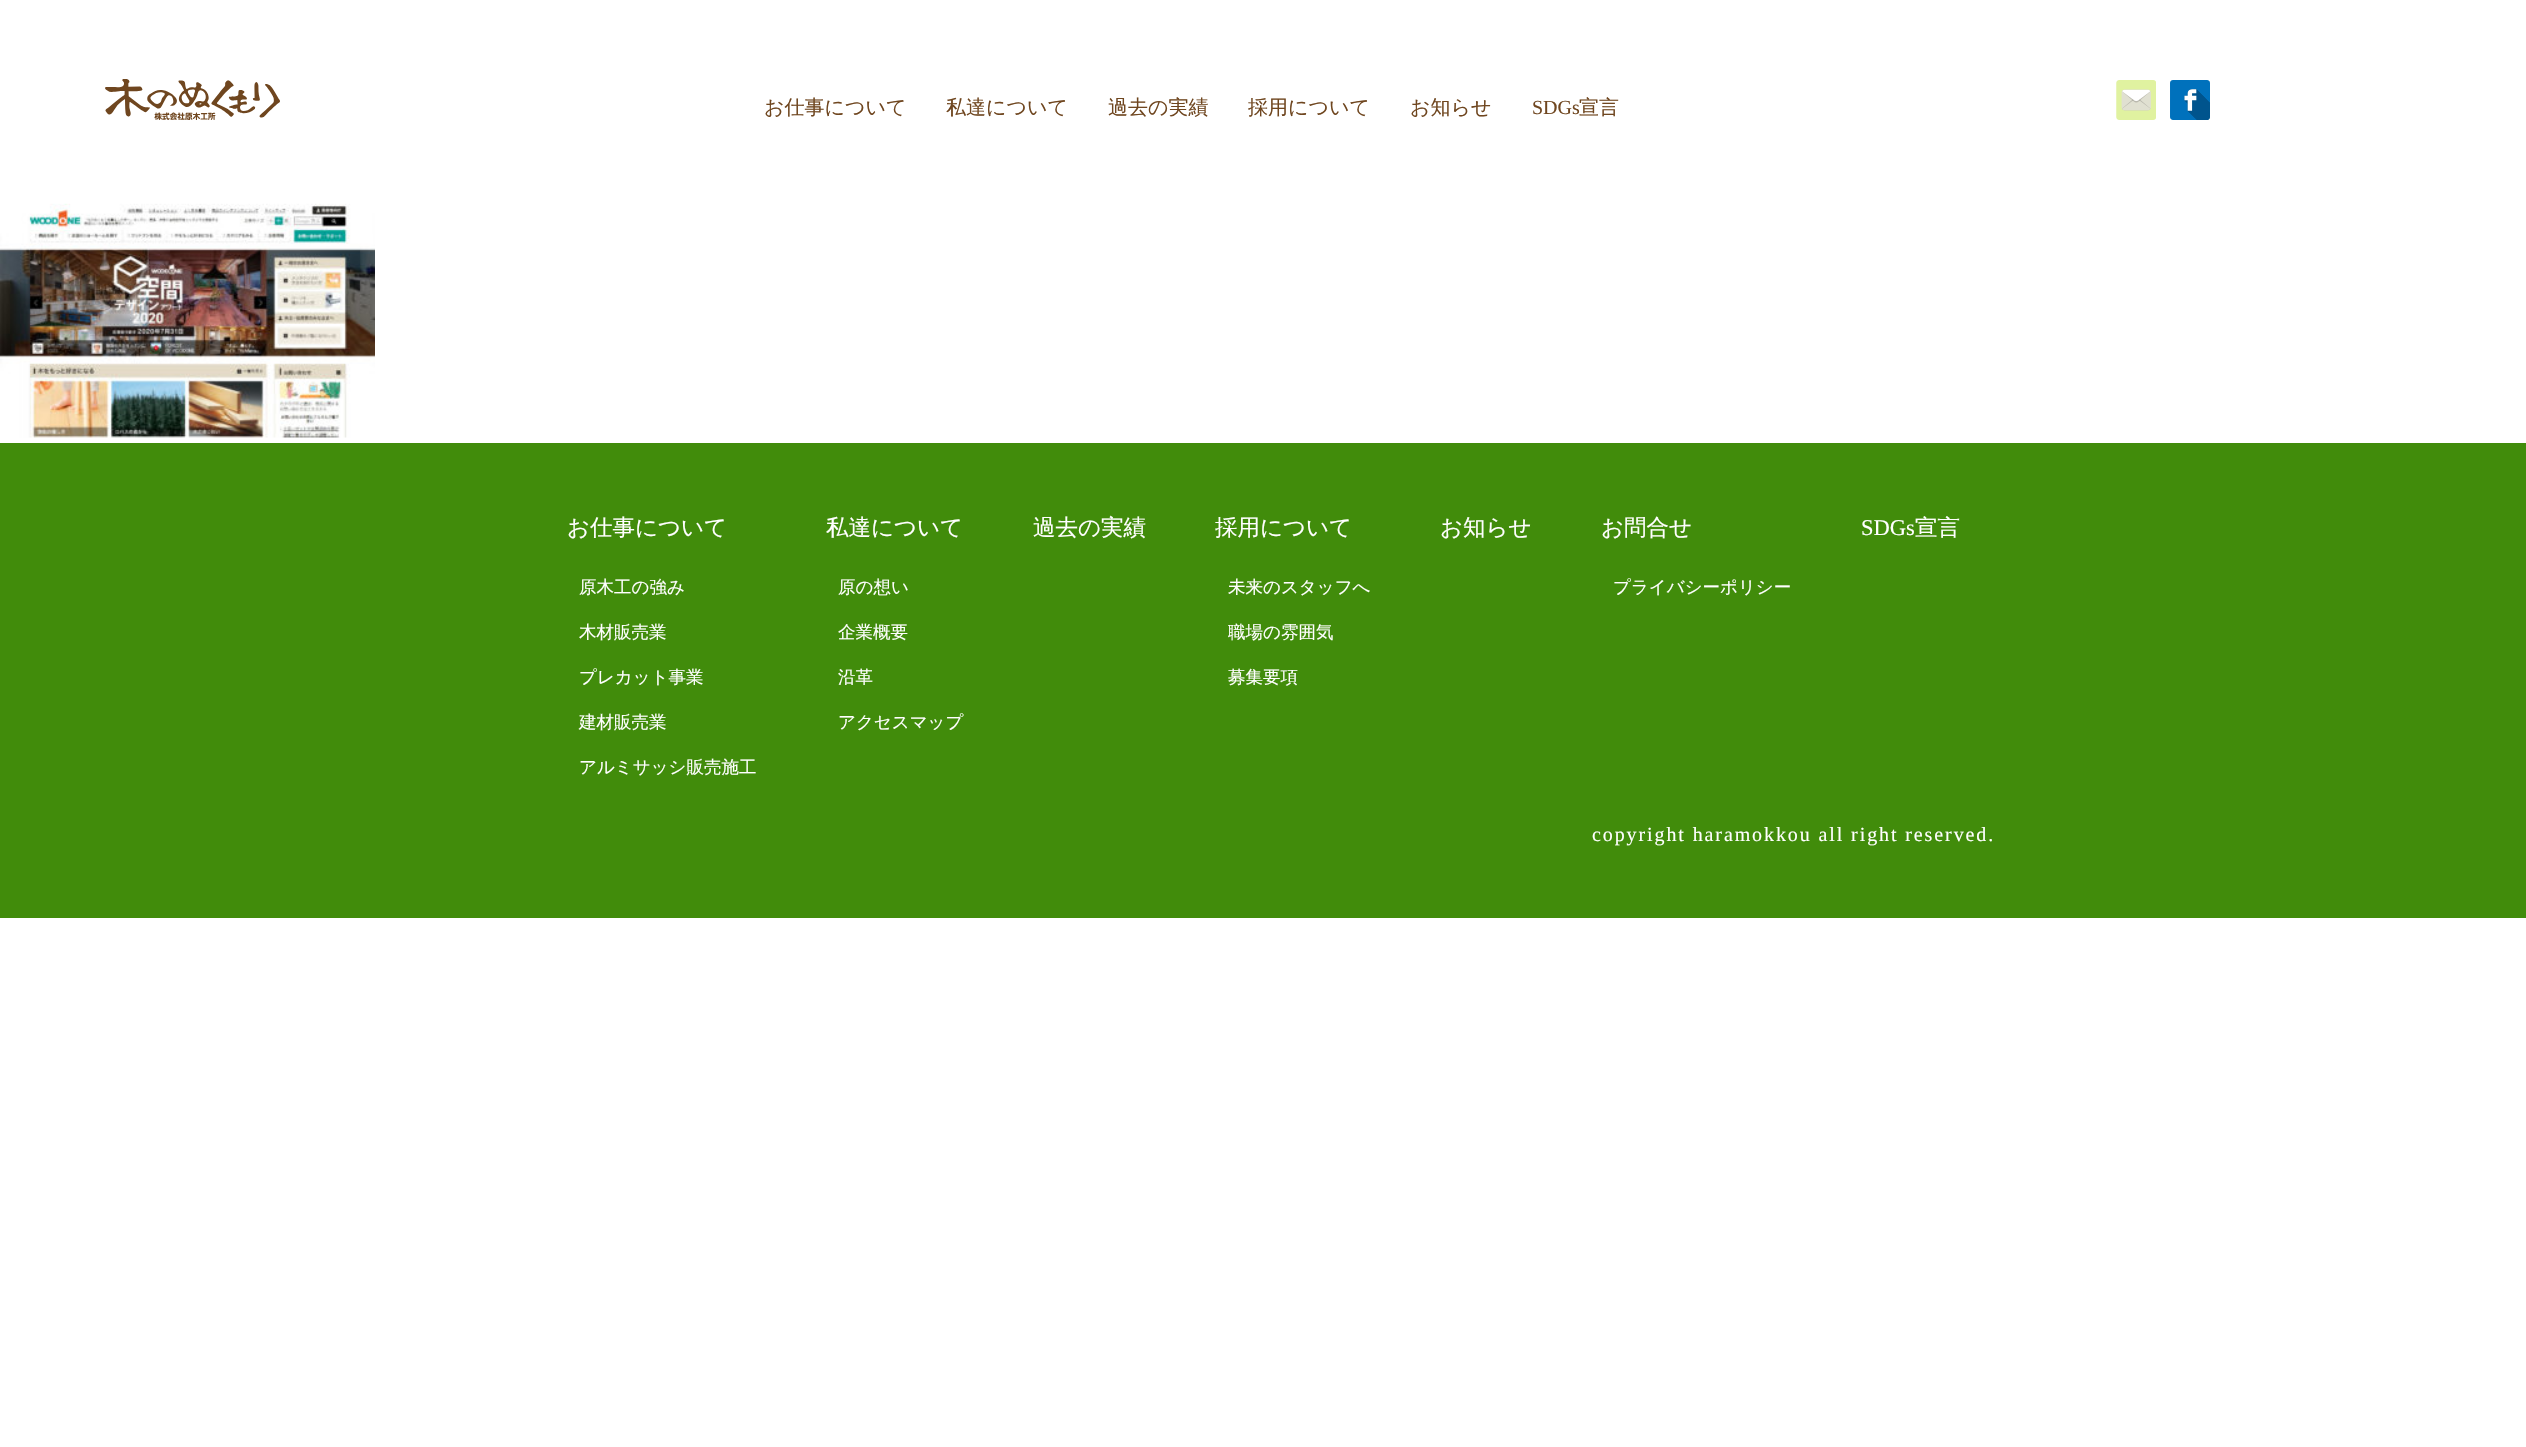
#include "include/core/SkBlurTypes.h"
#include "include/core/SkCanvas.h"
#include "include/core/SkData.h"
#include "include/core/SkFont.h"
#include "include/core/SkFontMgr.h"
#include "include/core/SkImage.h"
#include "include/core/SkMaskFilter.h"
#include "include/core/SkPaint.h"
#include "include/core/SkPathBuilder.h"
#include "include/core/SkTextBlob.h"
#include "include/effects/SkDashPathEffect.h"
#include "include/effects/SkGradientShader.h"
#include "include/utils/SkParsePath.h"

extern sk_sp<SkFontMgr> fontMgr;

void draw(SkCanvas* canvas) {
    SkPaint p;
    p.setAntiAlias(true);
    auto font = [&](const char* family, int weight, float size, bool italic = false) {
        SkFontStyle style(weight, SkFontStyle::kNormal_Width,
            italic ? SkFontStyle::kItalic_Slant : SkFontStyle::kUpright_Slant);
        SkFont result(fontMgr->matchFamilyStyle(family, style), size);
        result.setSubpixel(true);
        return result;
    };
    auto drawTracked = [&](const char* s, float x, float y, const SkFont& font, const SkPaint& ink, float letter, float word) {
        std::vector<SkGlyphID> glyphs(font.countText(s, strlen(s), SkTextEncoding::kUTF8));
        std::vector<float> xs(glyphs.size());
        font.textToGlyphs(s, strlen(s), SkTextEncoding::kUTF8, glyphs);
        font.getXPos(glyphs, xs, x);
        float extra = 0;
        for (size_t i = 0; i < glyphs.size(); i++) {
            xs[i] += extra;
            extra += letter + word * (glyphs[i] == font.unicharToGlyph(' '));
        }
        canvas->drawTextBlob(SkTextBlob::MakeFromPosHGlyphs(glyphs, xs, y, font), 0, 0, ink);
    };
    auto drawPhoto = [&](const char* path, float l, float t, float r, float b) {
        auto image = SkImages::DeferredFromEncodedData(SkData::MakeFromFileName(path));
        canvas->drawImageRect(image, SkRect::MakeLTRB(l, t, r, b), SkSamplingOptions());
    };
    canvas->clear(0xFFFFFFFF);
    drawPhoto("media/1.png", 105, 79, 280, 120);
    auto font1 = font("WenQuanYi Zen Hei", 500, 20);
    p.setColor(0xFF6F461F);
    {
        const struct { const char* s; float x, y; } items[] = {
            {"お仕事について", 764, 114},
            {"私達について", 946, 114},
            {"過去の実績", 1108, 114},
            {"採用について", 1248, 114},
            {"お知らせ", 1410, 114},
        };
        for (auto [s, x, y] : items) {
            canvas->drawString(s, x, y, font1, p);
        }
    }
    auto font2 = font("Liberation Serif", 400, 20);
    canvas->drawString("SDGs", 1532, 114, font2, p);
    canvas->drawString("宣言", 1579, 114, font1, p);
    drawPhoto("media/2.png", 2116, 80, 2156, 120);
    drawPhoto("media/3.png", 2170, 80, 2210, 120);
    drawPhoto("media/4.png", 0, 203, 375, 438);
    p.setColor(0xFF418C0B);
    canvas->drawRect(SkRect::MakeLTRB(0, 443, 2526, 918), p);
    auto font3 = font("WenQuanYi Zen Hei", 500, 22.5f);
    p.setColor(0xFFFFFFFF);
    canvas->drawString("お仕事について", 567, 535, font3, p);
    auto font4 = font("WenQuanYi Zen Hei", 500, 17.5f);
    {
        const struct { const char* s; float x, y; } items[] = {
            {"原木工の強み", 579, 593},
            {"木材販売業", 579, 638},
            {"プレカット事業", 579, 683},
            {"建材販売業", 579, 728},
            {"アルミサッシ販売施工", 579, 773},
        };
        for (auto [s, x, y] : items) {
            canvas->drawString(s, x, y, font4, p);
        }
    }
    canvas->drawString("私達について", 826, 535, font3, p);
    {
        const struct { const char* s; float x, y; } items[] = {
            {"原の想い", 838, 593},
            {"企業概要", 838, 638},
            {"沿革", 838, 683},
            {"アクセスマップ", 838, 728},
        };
        for (auto [s, x, y] : items) {
            canvas->drawString(s, x, y, font4, p);
        }
    }
    canvas->drawString("過去の実績", 1033, 535, font3, p);
    canvas->drawString("採用について", 1215, 535, font3, p);
    {
        const struct { const char* s; float x, y; } items[] = {
            {"未来のスタッフへ", 1228, 593},
            {"職場の雰囲気", 1228, 638},
            {"募集要項", 1228, 683},
        };
        for (auto [s, x, y] : items) {
            canvas->drawString(s, x, y, font4, p);
        }
    }
    canvas->drawString("お知らせ", 1440, 535, font3, p);
    canvas->drawString("お問合せ", 1601, 535, font3, p);
    canvas->drawString("プライバシーポリシー", 1613, 593, font4, p);
    auto font5 = font("Liberation Serif", 400, 22.5f);
    canvas->drawString("SDGs", 1861, 535, font5, p);
    canvas->drawString("宣言", 1915, 535, font3, p);
    drawTracked("copyright haramokkou all right reserved.", 1592, 841, font2, p, 1.9f, 0);
}
